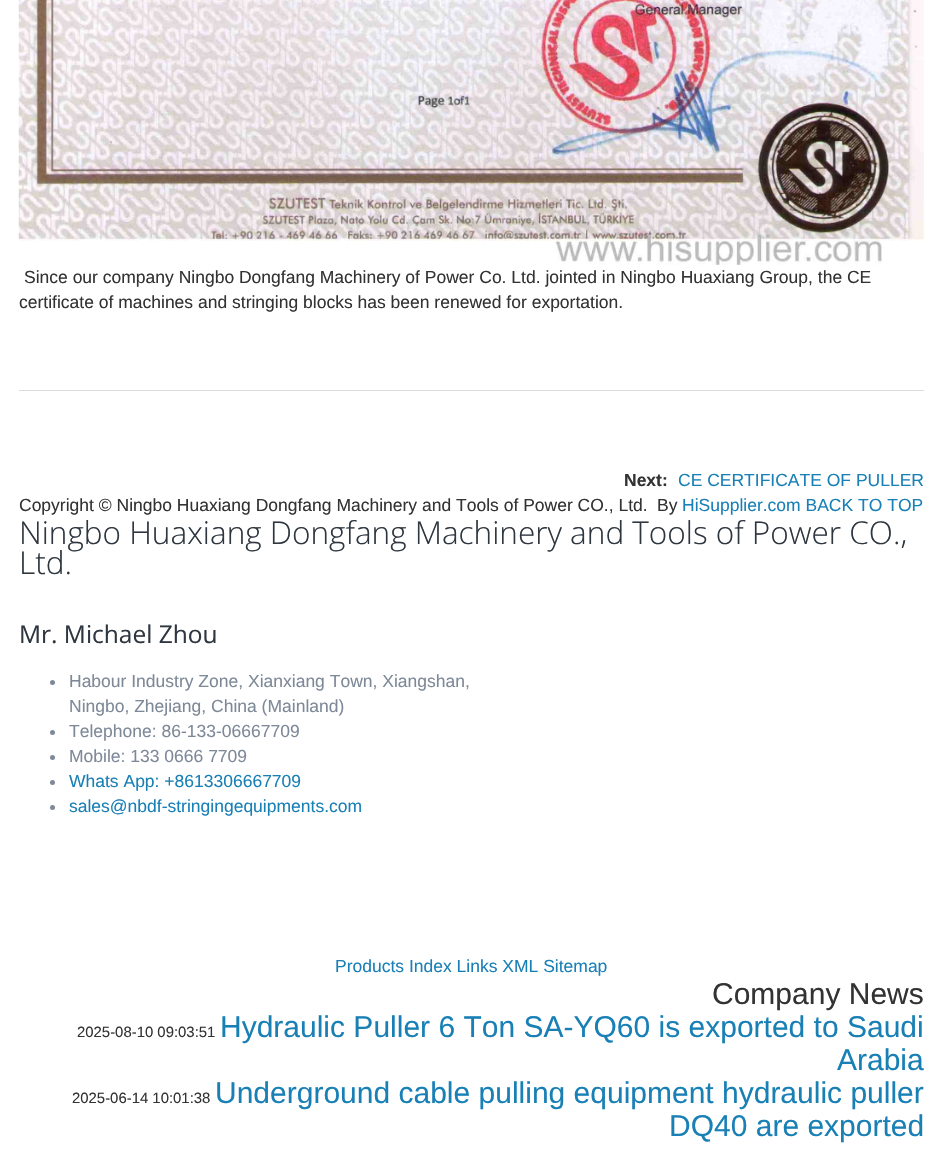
#include "include/core/SkBlurTypes.h"
#include "include/core/SkCanvas.h"
#include "include/core/SkData.h"
#include "include/core/SkFont.h"
#include "include/core/SkFontMgr.h"
#include "include/core/SkImage.h"
#include "include/core/SkMaskFilter.h"
#include "include/core/SkPaint.h"
#include "include/core/SkPathBuilder.h"
#include "include/core/SkTextBlob.h"
#include "include/effects/SkDashPathEffect.h"
#include "include/effects/SkGradientShader.h"
#include "include/utils/SkParsePath.h"

extern sk_sp<SkFontMgr> fontMgr;

void draw(SkCanvas* canvas) {
    SkPaint p;
    p.setAntiAlias(true);
    auto font = [&](const char* family, int weight, float size, bool italic = false) {
        SkFontStyle style(weight, SkFontStyle::kNormal_Width,
            italic ? SkFontStyle::kItalic_Slant : SkFontStyle::kUpright_Slant);
        SkFont result(fontMgr->matchFamilyStyle(family, style), size);
        result.setSubpixel(true);
        return result;
    };
    auto drawPhoto = [&](const char* path, float l, float t, float r, float b) {
        auto image = SkImages::DeferredFromEncodedData(SkData::MakeFromFileName(path));
        canvas->drawImageRect(image, SkRect::MakeLTRB(l, t, r, b), SkSamplingOptions());
    };
    canvas->clear(0xFFFFFFFF);
    drawPhoto("media/1.png", 18, 0, 924, 265);
    auto font1 = font("Liberation Sans", 400, 17.5f);
    p.setColor(0xFF333333);
    canvas->drawString("Since our company Ningbo Dongfang Machinery of Power Co. Ltd. jointed in Ningbo Huaxiang Group, the CE", 24, 283, font1, p);
    canvas->drawString("certificate of machines and stringing blocks has been renewed for exportation.", 19, 308, font1, p);
    p.setColor(0xFFDDDDDD);
    canvas->drawRect(SkRect::MakeLTRB(19, 390, 924, 391), p);
    auto font2 = font("Liberation Sans", 700, 17.5f);
    p.setColor(0xFF333333);
    canvas->drawString("Next:", 624, 486, font2, p);
    p.setColor(0xFF1980B6);
    canvas->drawString("CE CERTIFICATE OF PULLER", 678, 486, font1, p);
    p.setColor(0xFF333333);
    canvas->drawString("Copyright © Ningbo Huaxiang Dongfang Machinery and Tools of Power CO., Ltd.", 19, 511, font1, p);
    canvas->drawString("By", 657, 511, font1, p);
    p.setColor(0xFF1980B6);
    canvas->drawString("HiSupplier.com BACK TO TOP", 682, 511, font1, p);
    auto font3 = font("Open Sans", 300, 31.5f);
    p.setColor(0xFF2E363F);
    canvas->drawString("Ningbo Huaxiang Dongfang Machinery and Tools of Power CO.,", 19, 544, font3, p);
    canvas->drawString("Ltd.", 19, 574, font3, p);
    auto font4 = font("Open Sans", 400, 24.5f);
    canvas->drawString("Mr. Michael Zhou", 19, 643, font4, p);
    p.setColor(0xFF7E8998);
    canvas->drawCircle(52.5f, 682.5f, 2.5f, p);
    canvas->drawString("Habour Industry Zone, Xianxiang Town, Xiangshan,", 69, 687, font1, p);
    canvas->drawString("Ningbo, Zhejiang, China (Mainland)", 69, 712, font1, p);
    canvas->drawCircle(52.5f, 732.5f, 2.5f, p);
    canvas->drawString("Telephone: 86-133-06667709", 69, 737, font1, p);
    canvas->drawCircle(52.5f, 757.5f, 2.5f, p);
    canvas->drawString("Mobile: 133 0666 7709", 69, 762, font1, p);
    canvas->drawCircle(52.5f, 782.5f, 2.5f, p);
    p.setColor(0xFF1980B6);
    canvas->drawString("Whats App: +8613306667709", 69, 787, font1, p);
    p.setColor(0xFF7E8998);
    canvas->drawCircle(52.5f, 807.5f, 2.5f, p);
    p.setColor(0xFF1980B6);
    canvas->drawString("sales@nbdf-stringingequipments.com", 69, 812, font1, p);
    canvas->drawString("Products Index Links XML Sitemap", 335, 972, font1, p);
    auto font5 = font("Liberation Sans", 400, 30);
    p.setColor(0xFF333333);
    canvas->drawString("Company News", 712, 1004, font5, p);
    auto font6 = font("Liberation Sans", 400, 14.9f);
    canvas->drawString("2025-08-10 09:03:51", 77, 1037, font6, p);
    p.setColor(0xFF1980B6);
    canvas->drawString("Hydraulic Puller 6 Ton SA-YQ60 is exported to Saudi", 220, 1037, font5, p);
    canvas->drawString("Arabia", 837, 1070, font5, p);
    p.setColor(0xFF333333);
    canvas->drawString("2025-06-14 10:01:38", 72, 1103, font6, p);
    p.setColor(0xFF1980B6);
    canvas->drawString("Underground cable pulling equipment hydraulic puller", 215, 1103, font5, p);
    canvas->drawString("DQ40 are exported", 669, 1136, font5, p);
}
